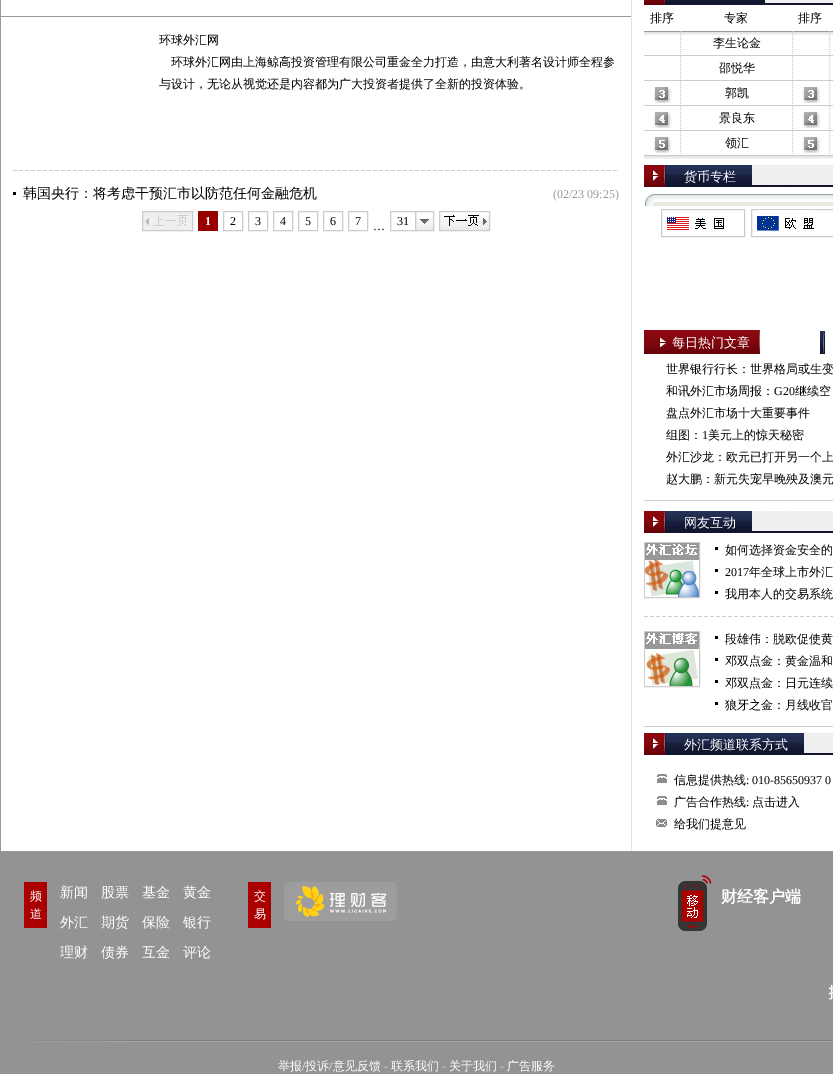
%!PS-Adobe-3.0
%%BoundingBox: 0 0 833 1074
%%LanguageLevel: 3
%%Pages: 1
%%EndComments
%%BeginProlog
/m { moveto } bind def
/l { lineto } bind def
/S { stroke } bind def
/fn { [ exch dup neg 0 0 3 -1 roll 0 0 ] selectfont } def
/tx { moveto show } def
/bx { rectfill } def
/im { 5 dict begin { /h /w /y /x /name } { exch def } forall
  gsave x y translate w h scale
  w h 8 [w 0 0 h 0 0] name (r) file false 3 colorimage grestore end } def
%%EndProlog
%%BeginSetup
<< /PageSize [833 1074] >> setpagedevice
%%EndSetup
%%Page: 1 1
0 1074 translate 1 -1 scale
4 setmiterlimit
1 setgray
0 0 833 1074 bx
0.6 setgray
0 851 833 1 bx
0 0 1 852 bx
(image0.raw) 631 0 160 851 im
1 16 630 1 bx
/WenQuanYiZenHei-Medium 12 fn
0 setgray
(环球外汇网) 159 44 tx
(环球外汇网由上海鲸高投资管理有限公司重金全力打造，由意大利著名设计师全程参) 171 66 tx
(与设计，无论从视觉还是内容都为广大投资者提供了全新的投资体验。) 159 88 tx
(image1.raw) 13 170 604 1 im
0.004 setgray
13 192 3 3 bx
/WenQuanYiZenHei-Medium 14 fn
0 setgray
(韩国央行：将考虑干预汇市以防范任何金融危机) 23 198 tx
/LiberationSerif-Regular 12 fn
0.6 setgray
(\(02/23 09:25\)) 553 198 tx
(image2.raw) 143 212 49 18 im
0.8 setgray
142.5 211.5 50 19 rectstroke
0.6 0 0 setrgbcolor
198 211 20 20 bx
/LiberationSerif-Bold 12 fn
1 setgray
(1) 205 225 tx
0.8 setgray
223.5 211.5 19 19 rectstroke
/LiberationSerif-Regular 12 fn
0 setgray
(2) 230 225 tx
0.8 setgray
248.5 211.5 19 19 rectstroke
0 setgray
(3) 255 225 tx
0.8 setgray
273.5 211.5 19 19 rectstroke
0 setgray
(4) 280 225 tx
0.8 setgray
298.5 211.5 19 19 rectstroke
0 setgray
(5) 305 225 tx
0.8 setgray
323.5 211.5 19 19 rectstroke
0 setgray
(6) 330 225 tx
0.8 setgray
348.5 211.5 19 19 rectstroke
0 setgray
(7) 355 225 tx
0.8 setgray
390.5 211.5 25 19 rectstroke
0 setgray
(31) 397 225 tx
(image3.raw) 416 218 17 12 im
0.8 setgray
415.5 211.5 18 19 rectstroke
(image4.raw) 440 215 49 15 im
439.5 211.5 50 19 rectstroke
0 setgray
(…) 373 230 tx
(image5.raw) 765 0 68 5 im
(image6.raw) 644 0 121 5 im
/WenQuanYiZenHei-Medium 12 fn
(排序) 650 22 tx
(专家) 724 22 tx
(排序) 798 22 tx
(image7.raw) 644 31 189 4 im
(image8.raw) 644 156 189 3 im
0.8 setgray
[1 1] 0 setdash
680.5 31 m 680.5 56 l S
644 55 37 1 bx
792.5 31 m 792.5 56 l S
681 55 112 1 bx
0 setgray
(李生论金) 713 47 tx
0.8 setgray
680.5 56 m 680.5 81 l S
644 80 37 1 bx
792.5 56 m 792.5 81 l S
681 80 112 1 bx
0 setgray
(邵悦华) 719 72 tx
0.8 setgray
680.5 81 m 680.5 106 l S
644 105 37 1 bx
(image9.raw) 653 86 19 17 im
792.5 81 m 792.5 106 l S
681 105 112 1 bx
0 setgray
(郭凯) 725 97 tx
0.8 setgray
680.5 106 m 680.5 131 l S
644 130 37 1 bx
(image10.raw) 653 111 19 17 im
792.5 106 m 792.5 131 l S
681 130 112 1 bx
0 setgray
(景良东) 719 122 tx
0.8 setgray
680.5 131 m 680.5 156 l S
644 155 37 1 bx
(image11.raw) 653 136 19 17 im
792.5 131 m 792.5 156 l S
681 155 112 1 bx
0 setgray
(领汇) 725 147 tx
0.8 setgray
829.5 31 m 829.5 56 l S
793 55 40 1 bx
829.5 56 m 829.5 81 l S
793 80 40 1 bx
829.5 81 m 829.5 106 l S
793 105 40 1 bx
(image9.raw) 802 86 19 17 im
829.5 106 m 829.5 131 l S
793 130 40 1 bx
(image10.raw) 802 111 19 17 im
829.5 131 m 829.5 156 l S
793 155 40 1 bx
(image11.raw) 802 136 19 17 im
(image12.raw) 752 165 81 22 im
(image13.raw) 644 165 108 22 im
/WenQuanYiZenHei-Medium 13 fn
1 setgray
(货币专栏) 684 181 tx
(image14.raw) 645 193 188 13 im
0.8 setgray
[] 0 setdash
661.5 209.5 83 27 rectstroke
(image15.raw) 667 217 57 13 im
751.5 209.5 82 27 rectstroke
(image16.raw) 757 210 57 26 im
(image17.raw) 644 330 116 24 im
(image18.raw) 660 337 6 10 im
1 setgray
(每日热门文章) 672 347 tx
(image19.raw) 820 331 5 23 im
/WenQuanYiZenHei-Medium 12 fn
0 setgray
666 373 m -1 0 32 (世界银行行长：世界格局或生变) widthshow
(和讯外汇市场周报：) 666 395 tx
/LiberationSerif-Regular 12 fn
(G20) 774 395 tx
/WenQuanYiZenHei-Medium 12 fn
(继续空) 795 395 tx
(盘点外汇市场十大重要事件) 666 417 tx
(组图：) 666 439 tx
/LiberationSerif-Regular 12 fn
(1) 702 439 tx
/WenQuanYiZenHei-Medium 12 fn
(美元上的惊天秘密) 708 439 tx
(外汇沙龙：欧元已打开另一个上) 666 461 tx
(赵大鹏：新元失宠早晚殃及澳元) 666 483 tx
0.8 setgray
644 500 189 1 bx
(image12.raw) 752 511 81 22 im
(image13.raw) 644 511 108 22 im
/WenQuanYiZenHei-Medium 13 fn
1 setgray
(网友互动) 684 527 tx
0.8 setgray
644.5 542.5 55 55 rectstroke
(image20.raw) 645 543 54 54 im
0.004 setgray
715 547 3 3 bx
/WenQuanYiZenHei-Medium 12 fn
0 setgray
(如何选择资金安全的) 725 554 tx
0.004 setgray
715 569 3 3 bx
/LiberationSerif-Regular 12 fn
0 setgray
(2017) 725 576 tx
/WenQuanYiZenHei-Medium 12 fn
(年全球上市外汇) 749 576 tx
0.004 setgray
715 591 3 3 bx
0 setgray
(我用本人的交易系统) 725 598 tx
(image21.raw) 644 605 189 23 im
0.8 setgray
644.5 631.5 55 55 rectstroke
(image22.raw) 645 632 54 54 im
0.004 setgray
715 636 3 3 bx
0 setgray
725 643 m -1 0 32 (段雄伟：脱欧促使黄) widthshow
0.004 setgray
715 658 3 3 bx
0 setgray
(邓双点金：黄金温和) 725 665 tx
0.004 setgray
715 680 3 3 bx
0 setgray
(邓双点金：日元连续) 725 687 tx
0.004 setgray
715 702 3 3 bx
0 setgray
725 709 m -1 0 32 (狼牙之金：月线收官) widthshow
0.8 setgray
644 726 189 1 bx
(image23.raw) 804 733 29 22 im
(image24.raw) 644 733 160 22 im
/WenQuanYiZenHei-Medium 13 fn
1 setgray
(外汇频道联系方式) 684 749 tx
(image25.raw) 657 774 10 9 im
/WenQuanYiZenHei-Medium 12 fn
0 setgray
(信息提供热线) 674 784 tx
/LiberationSerif-Regular 12 fn
(: 010-85650937 0) 746 784 tx
(image25.raw) 657 796 10 9 im
/WenQuanYiZenHei-Medium 12 fn
(广告合作热线) 674 806 tx
/LiberationSerif-Regular 12 fn
(:) 746 806 tx
/WenQuanYiZenHei-Medium 12 fn
(点击进入) 752 806 tx
(image26.raw) 656 819 11 8 im
(给我们提意见) 674 828 tx
0.576 setgray
0 852 833 222 bx
(image27.raw) 32 1040 801 2 im
0.671 0 0 setrgbcolor
24 882 23 46 bx
1 setgray
(频) 30 900 tx
(道) 30 918 tx
/WenQuanYiZenHei-Medium 14 fn
(新闻) 60 897 tx
(股票) 101 897 tx
(基金) 142 897 tx
(黄金) 183 897 tx
(外汇) 60 927 tx
(期货) 101 927 tx
(保险) 142 927 tx
(银行) 183 927 tx
(理财) 60 957 tx
(债券) 101 957 tx
(互金) 142 957 tx
(评论) 183 957 tx
0.671 0 0 setrgbcolor
248 882 23 46 bx
/WenQuanYiZenHei-Medium 12 fn
1 setgray
(交) 254 900 tx
(易) 254 918 tx
(image28.raw) 284 882 113 39 im
(image29.raw) 678 875 34 56 im
/WenQuanYiZenHei-Bold 16 fn
(财经客户端) 721 902 tx
(image30.raw) 828 984 5 16 im
/WenQuanYiZenHei-Medium 12 fn
(举报) 278 1070 tx
/LiberationSerif-Regular 12 fn
(/) 302 1070 tx
/WenQuanYiZenHei-Medium 12 fn
(投诉) 305 1070 tx
/LiberationSerif-Regular 12 fn
(/) 329 1070 tx
/WenQuanYiZenHei-Medium 12 fn
(意见反馈) 333 1070 tx
/LiberationSerif-Regular 12 fn
0.867 setgray
(-) 384 1070 tx
/WenQuanYiZenHei-Medium 12 fn
1 setgray
(联系我们) 391 1070 tx
/LiberationSerif-Regular 12 fn
0.867 setgray
(-) 442 1070 tx
/WenQuanYiZenHei-Medium 12 fn
1 setgray
(关于我们) 449 1070 tx
/LiberationSerif-Regular 12 fn
0.867 setgray
(-) 500 1070 tx
/WenQuanYiZenHei-Medium 12 fn
1 setgray
(广告服务) 507 1070 tx
showpage
%%EOF
